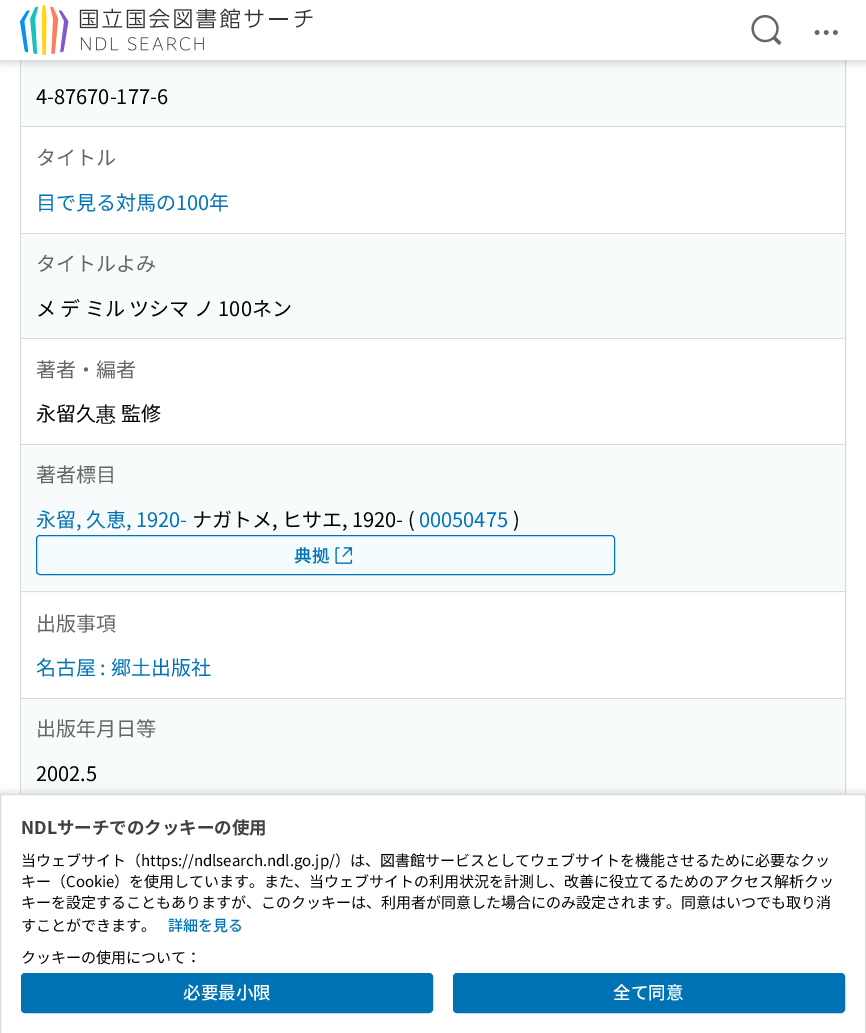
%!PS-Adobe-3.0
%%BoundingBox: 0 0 866 1033
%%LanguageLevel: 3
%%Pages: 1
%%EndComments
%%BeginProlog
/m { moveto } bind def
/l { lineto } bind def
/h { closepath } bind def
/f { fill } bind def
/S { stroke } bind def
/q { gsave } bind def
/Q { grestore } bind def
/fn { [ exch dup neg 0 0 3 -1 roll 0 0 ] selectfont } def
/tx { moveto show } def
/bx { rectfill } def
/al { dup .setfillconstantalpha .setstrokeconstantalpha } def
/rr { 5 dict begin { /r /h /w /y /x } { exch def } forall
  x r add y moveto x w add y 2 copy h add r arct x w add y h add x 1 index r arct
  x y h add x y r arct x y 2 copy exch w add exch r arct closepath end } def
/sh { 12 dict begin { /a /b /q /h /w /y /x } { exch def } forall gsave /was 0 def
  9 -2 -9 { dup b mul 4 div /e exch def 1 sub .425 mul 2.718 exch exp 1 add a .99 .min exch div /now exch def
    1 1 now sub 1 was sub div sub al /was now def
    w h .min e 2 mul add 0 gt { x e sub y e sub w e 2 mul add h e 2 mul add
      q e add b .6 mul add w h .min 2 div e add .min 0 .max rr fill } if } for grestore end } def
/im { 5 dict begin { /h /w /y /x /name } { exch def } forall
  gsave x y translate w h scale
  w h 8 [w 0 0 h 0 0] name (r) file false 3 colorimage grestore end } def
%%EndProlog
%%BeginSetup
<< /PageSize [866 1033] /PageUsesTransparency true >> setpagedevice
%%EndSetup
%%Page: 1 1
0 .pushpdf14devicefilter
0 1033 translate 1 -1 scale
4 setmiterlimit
1 setgray
0 0 866 1033 bx
0.859 setgray
20.5 -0.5 825 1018 rectstroke
0.969 0.984 0.988 setrgbcolor
21 60 824 68 bx
0 setgray
0 1 866 60 0 5 0.24 sh
1 setgray
0 0 866 60 bx
(image0.raw) 20 5 293 50 im
(image1.raw) 751 14 31 31 im
(image2.raw) 814 30 24 5 im
0.859 setgray
21 126 824 1 bx
/NotoSansJP-Regular 20 fn
0 setgray
(4-87670-177-6) 36 104 tx
0.859 setgray
21 233 824 1 bx
0.4 setgray
(タイトル) 36 165 tx
0 0.451 0.71 setrgbcolor
(目で見る対馬の100年) 36 210 tx
0.969 0.984 0.988 setrgbcolor
21 234 824 104 bx
0.859 setgray
21 338 824 1 bx
0.4 setgray
(タイトルよみ) 36 271 tx
0 setgray
(メ デ ミル ツシマ ノ 100ネン) 36 316 tx
0.859 setgray
21 444 824 1 bx
0.4 setgray
(著者・編者) 36 377 tx
0 setgray
(永留久) 36 421 tx
/WenQuanYiZenHei-Medium 20 fn
(惠) 96 421 tx
/NotoSansJP-Regular 20 fn
(監修) 121 421 tx
0.969 0.984 0.988 setrgbcolor
21 445 824 148 bx
0.859 setgray
21 591 824 1 bx
0.4 setgray
(著者標目) 36 482 tx
0 0.451 0.71 setrgbcolor
(永留, 久恵, 1920-) 36 527 tx
0 setgray
(ナガトメ, ヒサエ, 1920- \() 192 527 tx
0 0.451 0.71 setrgbcolor
(00050475) 419 527 tx
0 setgray
(\)) 513 527 tx
0.961 0.988 1 setrgbcolor
36.5 535.5 578 39 3.5 rr q f Q
0 0.451 0.71 setrgbcolor
S
/NotoSansJP-Medium 17.5 fn
(典拠) 294 562 tx
(image3.raw) 335 547 18 17 im
0.859 setgray
21 698 824 1 bx
/NotoSansJP-Regular 20 fn
0.4 setgray
(出版事項) 36 631 tx
0 0.451 0.71 setrgbcolor
(名古屋 : 郷土出版社) 36 675 tx
0.969 0.984 0.988 setrgbcolor
21 699 824 95 bx
0.4 setgray
(出版年月日等) 36 736 tx
0 setgray
(2002.5) 36 781 tx
0 795 866 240 0 5 0.24 sh
1 setgray
0.5 794.5 m 865.5 794.5 l 865.5 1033.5 l 0.5 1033.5 l h q f Q
0.859 setgray
S
/NotoSansJP-Bold 17.5 fn
0.251 setgray
(NDLサーチでのクッキーの使用) 21 834 tx
/NotoSansJP-Regular 15 fn
0 setgray
(当ウェブサイト（https://ndlsearch.ndl.go.jp/）は、図書館サービスとしてウェブサイトを機能させるために必要なクッ) 21 866 tx
(キー（Cookie）を使用しています。また、当ウェブサイトの利用状況を計測し、改善に役立てるためのアクセス解析クッ) 21 887 tx
(キーを設定することもありますが、このクッキーは、利用者が同意した場合にのみ設定されます。同意はいつでも取り消) 21 908 tx
(すことができます。) 21 931 tx
/NotoSansJP-Medium 15 fn
0 0.451 0.71 setrgbcolor
(詳細を見る) 168 931 tx
/NotoSansJP-Regular 15 fn
0 setgray
(クッキーの使用について：) 21 963 tx
0 0.451 0.71 setrgbcolor
21.5 973.5 411 39 3.5 rr q f Q
S
/NotoSansJP-Medium 17.5 fn
1 setgray
(必要最小限) 183 999 tx
0 0.451 0.71 setrgbcolor
453.5 973.5 391 39 3.5 rr q f Q
S
1 setgray
(全て同意) 613 999 tx
.poppdf14devicefilter showpage
%%EOF
